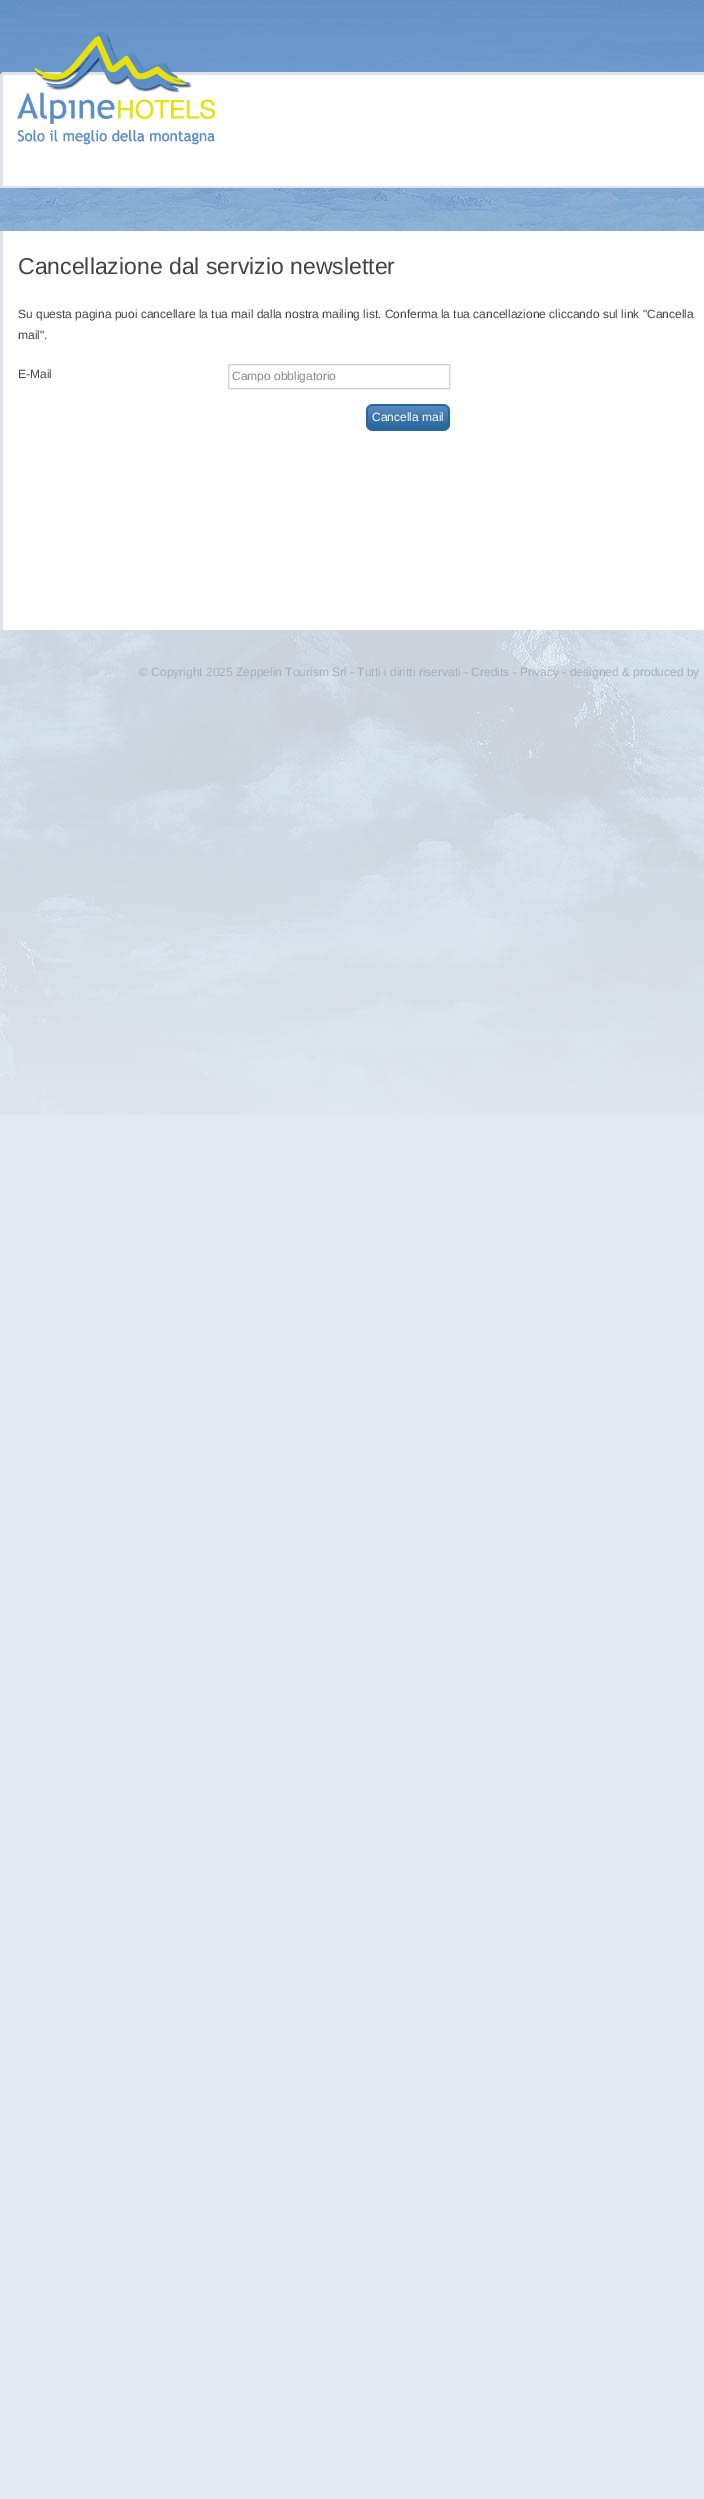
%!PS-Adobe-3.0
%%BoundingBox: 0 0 704 2499
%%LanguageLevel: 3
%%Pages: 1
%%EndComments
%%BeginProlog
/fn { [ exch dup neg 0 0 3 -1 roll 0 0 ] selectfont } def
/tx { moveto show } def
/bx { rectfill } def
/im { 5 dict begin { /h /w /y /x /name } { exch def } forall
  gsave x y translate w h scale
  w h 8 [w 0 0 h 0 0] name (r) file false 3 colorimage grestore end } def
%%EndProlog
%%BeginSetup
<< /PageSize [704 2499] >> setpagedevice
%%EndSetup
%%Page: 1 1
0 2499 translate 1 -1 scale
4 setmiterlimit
0.886 0.914 0.941 setrgbcolor
0 0 704 2499 bx
(image0.raw) 0 0 704 1115 im
(image1.raw) 0 72 704 116 im
(image2.raw) 17 31 199 114 im
(image3.raw) 0 231 704 399 im
/LiberationSans-Regular 23 fn
0.267 setgray
(Cancellazione dal servizio newsletter) 18 274 tx
/LiberationSans-Regular 12 fn
(Su questa pagina puoi cancellare la tua mail dalla nostra mailing list. Conferma la tua cancellazione cliccando sul link "Cancella) 18 318 tx
(mail".) 18 339 tx
(E-Mail) 18 378 tx
0.82 setgray
228.5 364.5 221 24 rectstroke
0.533 setgray
(Campo obbligatorio) 232 380 tx
(image4.raw) 366 404 6 27 im
(image5.raw) 372 404 72 27 im
1 setgray
(Cancella mail) 372 421 tx
(image6.raw) 444 404 6 27 im
0.631 0.686 0.741 setrgbcolor
(© Copyright 2025 Zeppelin Tourism Srl - Tutti i diritti riservati - Credits - Privacy - designed & produced by) 139 676 tx
showpage
%%EOF
